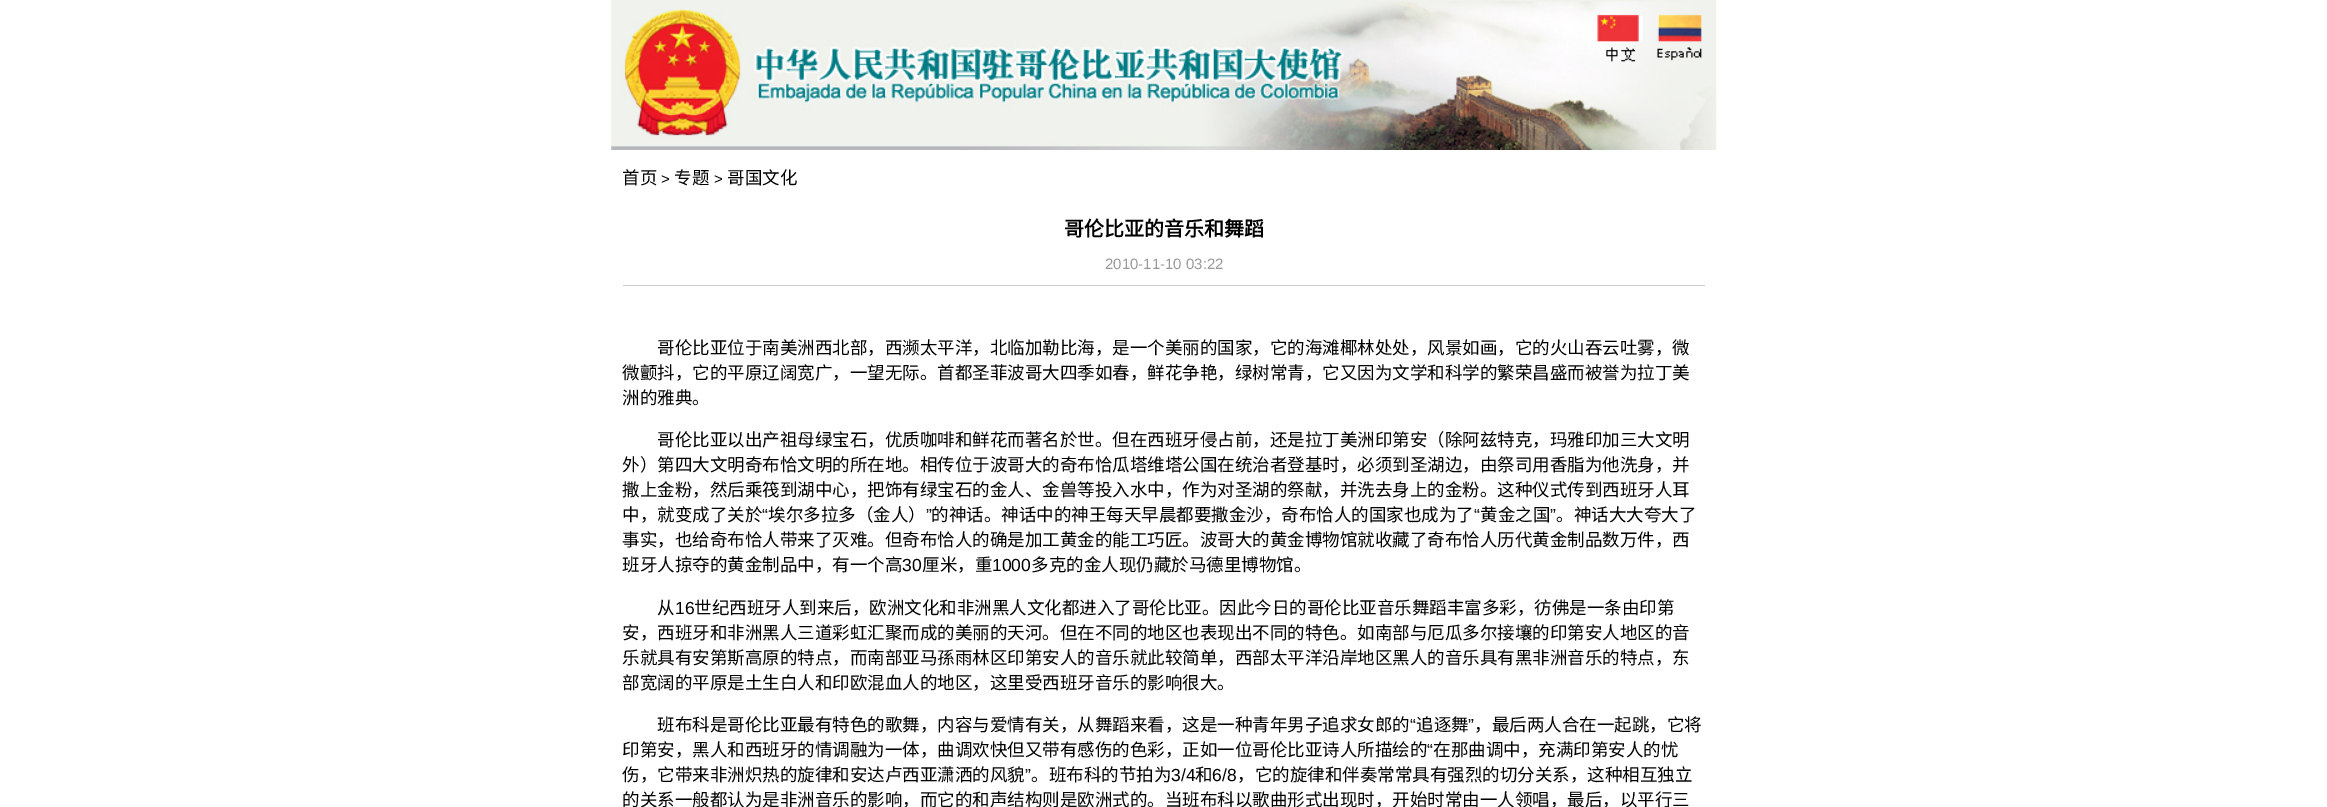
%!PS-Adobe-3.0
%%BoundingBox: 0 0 2327 807
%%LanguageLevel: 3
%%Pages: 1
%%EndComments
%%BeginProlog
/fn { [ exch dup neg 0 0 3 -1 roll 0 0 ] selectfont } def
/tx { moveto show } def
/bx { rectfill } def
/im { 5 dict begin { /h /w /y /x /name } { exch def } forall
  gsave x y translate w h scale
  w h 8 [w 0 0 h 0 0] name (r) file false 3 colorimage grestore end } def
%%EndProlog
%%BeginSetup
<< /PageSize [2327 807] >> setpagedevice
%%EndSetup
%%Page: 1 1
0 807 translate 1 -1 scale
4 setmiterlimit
1 setgray
0 0 2327 807 bx
(image0.raw) 611 0 1106 150 im
/NotoSansCJKSC-Regular 17.5 fn
0 setgray
(首页) 622 184 tx
/LiberationSans-Regular 15 fn
(>) 661 184 tx
/NotoSansCJKSC-Regular 17.5 fn
(专题) 674 184 tx
/LiberationSans-Regular 15 fn
(>) 714 184 tx
/NotoSansCJKSC-Regular 17.5 fn
(哥国文化) 727 184 tx
/NotoSansCJKSC-Bold 20 fn
(哥伦比亚的音乐和舞蹈) 1064 236 tx
/LiberationSans-Regular 15 fn
0.6 setgray
(2010-11-10 03:22) 1105 269 tx
0.8 setgray
623 285 1082 1 bx
/NotoSansCJKSC-Regular 17.5 fn
0 setgray
(哥伦比亚位于南美洲西北部，西濒太平洋，北临加勒比海，是一个美丽的国家，它的海滩椰林处处，风景如画，它的火山吞云吐雾，微) 657 354 tx
(微颤抖，它的平原辽阔宽广，一望无际。首都圣菲波哥大四季如春，鲜花争艳，绿树常青，它又因为文学和科学的繁荣昌盛而被誉为拉丁美) 622 379 tx
(洲的雅典。) 622 404 tx
(哥伦比亚以出产祖母绿宝石，优质咖啡和鲜花而著名於世。但在西班牙侵占前，还是拉丁美洲印第安（除阿兹特克，玛雅印加三大文明) 657 446 tx
(外）第四大文明奇布恰文明的所在地。相传位于波哥大的奇布恰瓜塔维塔公国在统治者登基时，必须到圣湖边，由祭司用香脂为他洗身，并) 622 471 tx
(撒上金粉，然后乘筏到湖中心，把饰有绿宝石的金人、金兽等投入水中，作为对圣湖的祭献，并洗去身上的金粉。这种仪式传到西班牙人耳) 622 496 tx
(中，就变成了关於) 622 521 tx
/LiberationSans-Regular 17.5 fn
(“) 762 521 tx
/NotoSansCJKSC-Regular 17.5 fn
(埃尔多拉多（金人）) 768 521 tx
/LiberationSans-Regular 17.5 fn
(”) 926 521 tx
/NotoSansCJKSC-Regular 17.5 fn
(的神话。神话中的神王每天早晨都要撒金沙，奇布恰人的国家也成为了) 931 521 tx
/LiberationSans-Regular 17.5 fn
(“) 1474 521 tx
/NotoSansCJKSC-Regular 17.5 fn
(黄金之国) 1480 521 tx
/LiberationSans-Regular 17.5 fn
(”) 1550 521 tx
/NotoSansCJKSC-Regular 17.5 fn
(。神话大大夸大了) 1556 521 tx
(事实，也给奇布恰人带来了灭难。但奇布恰人的确是加工黄金的能工巧匠。波哥大的黄金博物馆就收藏了奇布恰人历代黄金制品数万件，西) 622 546 tx
(班牙人掠夺的黄金制品中，有一个高) 622 571 tx
/LiberationSans-Regular 17.5 fn
(30) 902 571 tx
/NotoSansCJKSC-Regular 17.5 fn
(厘米，重) 922 571 tx
/LiberationSans-Regular 17.5 fn
(1000) 992 571 tx
/NotoSansCJKSC-Regular 17.5 fn
(多克的金人现仍藏於马德里博物馆。) 1031 571 tx
(从) 657 614 tx
/LiberationSans-Regular 17.5 fn
(16) 675 614 tx
/NotoSansCJKSC-Regular 17.5 fn
(世纪西班牙人到来后，欧洲文化和非洲黑人文化都进入了哥伦比亚。因此今日的哥伦比亚音乐舞蹈丰富多彩，彷佛是一条由印第) 694 614 tx
(安，西班牙和非洲黑人三道彩虹汇聚而成的美丽的天河。但在不同的地区也表现出不同的特色。如南部与厄瓜多尔接壤的印第安人地区的音) 622 639 tx
(乐就具有安第斯高原的特点，而南部亚马孫雨林区印第安人的音乐就此较简单，西部太平洋沿岸地区黑人的音乐具有黑非洲音乐的特点，东) 622 664 tx
(部宽阔的平原是土生白人和印欧混血人的地区，这里受西班牙音乐的影响很大。) 622 689 tx
(班布科是哥伦比亚最有特色的歌舞，内容与爱情有关，从舞蹈来看，这是一种青年男子追求女郎的) 657 731 tx
/LiberationSans-Regular 17.5 fn
(“) 1410 731 tx
/NotoSansCJKSC-Regular 17.5 fn
(追逐舞) 1416 731 tx
/LiberationSans-Regular 17.5 fn
(”) 1468 731 tx
/NotoSansCJKSC-Regular 17.5 fn
(，最后两人合在一起跳，它将) 1474 731 tx
(印第安，黑人和西班牙的情调融为一体，曲调欢快但又带有感伤的色彩，正如一位哥伦比亚诗人所描绘的) 622 756 tx
/LiberationSans-Regular 17.5 fn
(“) 1427 756 tx
/NotoSansCJKSC-Regular 17.5 fn
(在那曲调中，充满印第安人的忧) 1433 756 tx
(伤，它带来非洲炽热的旋律和安达卢西亚潇洒的风貌) 622 781 tx
/LiberationSans-Regular 17.5 fn
(”) 1025 781 tx
/NotoSansCJKSC-Regular 17.5 fn
(。班布科的节拍为) 1031 781 tx
/LiberationSans-Regular 17.5 fn
(3/4) 1171 781 tx
/NotoSansCJKSC-Regular 17.5 fn
(和) 1195 781 tx
/LiberationSans-Regular 17.5 fn
(6/8) 1212 781 tx
/NotoSansCJKSC-Regular 17.5 fn
(，它的旋律和伴奏常常具有强烈的切分关系，这种相互独立) 1237 781 tx
(的关系一般都认为是非洲音乐的影响，而它的和声结构则是欧洲式的。当班布科以歌曲形式出现时，开始时常由一人领唱，最后，以平行三) 622 806 tx
showpage
%%EOF
